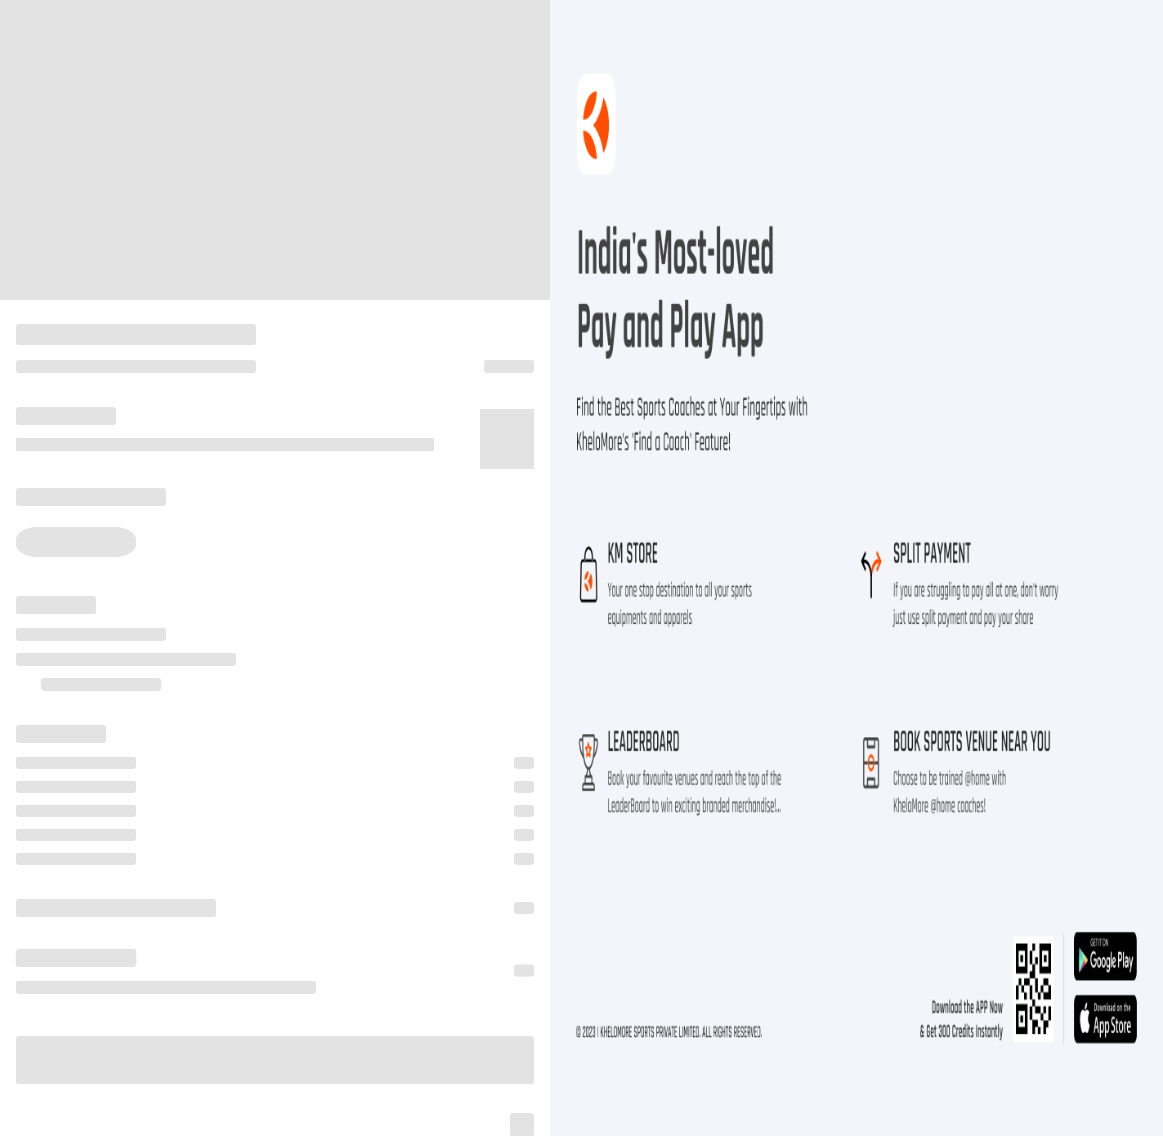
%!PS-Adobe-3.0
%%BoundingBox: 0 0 1163 1136
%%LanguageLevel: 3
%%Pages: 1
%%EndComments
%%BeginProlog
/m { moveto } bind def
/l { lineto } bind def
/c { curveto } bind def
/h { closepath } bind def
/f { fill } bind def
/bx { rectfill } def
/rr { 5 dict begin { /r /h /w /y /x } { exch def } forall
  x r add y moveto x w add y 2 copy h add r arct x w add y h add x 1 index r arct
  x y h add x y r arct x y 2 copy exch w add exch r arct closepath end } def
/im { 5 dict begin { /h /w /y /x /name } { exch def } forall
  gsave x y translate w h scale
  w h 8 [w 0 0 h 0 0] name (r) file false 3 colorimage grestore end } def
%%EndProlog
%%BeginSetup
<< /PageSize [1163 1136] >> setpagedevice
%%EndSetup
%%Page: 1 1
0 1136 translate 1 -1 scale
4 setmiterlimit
1 setgray
0 0 1163 1136 bx
0.89 setgray
0 0 550 300 bx
20 324 m 252 324 l 254 324 256 325 256 327 c 256 343 l 256 344 254 345 252 345 c 20 345 l 18 345 16 344 16 343 c 16 327 l 16 325 18 324 20 324 c h f
20 360 m 252 360 l 254 360 256 361 256 362 c 256 370 l 256 372 254 373 252 373 c 20 373 l 18 373 16 372 16 370 c 16 362 l 16 361 18 360 20 360 c h f
488 360 m 530 360 l 532 360 534 361 534 362 c 534 370 l 534 372 532 373 530 373 c 488 373 l 486 373 484 372 484 370 c 484 362 l 484 361 486 360 488 360 c h f
20 407 m 112 407 l 114 407 116 408 116 410 c 116 423 l 116 424 114 425 112 425 c 20 425 l 18 425 16 424 16 423 c 16 410 l 16 408 18 407 20 407 c h f
16 438 418 13 2 rr f
480 409 54 60 bx
20 488 m 162 488 l 164 488 166 489 166 491 c 166 504 l 166 505 164 506 162 506 c 20 506 l 18 506 16 505 16 504 c 16 491 l 16 489 18 488 20 488 c h f
38 527 m 114 527 l 126 527 136 533 136 540 c 136 544 l 136 551 126 557 114 557 c 38 557 l 26 557 16 551 16 544 c 16 540 l 16 533 26 527 38 527 c h f
20 596 m 92 596 l 94 596 96 597 96 599 c 96 612 l 96 613 94 614 92 614 c 20 614 l 18 614 16 613 16 612 c 16 599 l 16 597 18 596 20 596 c h f
20 628 m 162 628 l 164 628 166 629 166 630 c 166 638 l 166 640 164 641 162 641 c 20 641 l 18 641 16 640 16 638 c 16 630 l 16 629 18 628 20 628 c h f
20 653 m 232 653 l 234 653 236 654 236 655 c 236 663 l 236 665 234 666 232 666 c 20 666 l 18 666 16 665 16 663 c 16 655 l 16 654 18 653 20 653 c h f
45 678 m 157 678 l 160 678 161 679 161 682 c 161 686 162 691 157 691 c 44 691 l 41 689 l 41 685 l 41 682 40 678 45 678 c h f
20 725 m 102 725 l 104 725 106 726 106 728 c 106 741 l 106 742 104 743 102 743 c 20 743 l 18 743 16 742 16 741 c 16 728 l 16 726 18 725 20 725 c h f
20 757 m 132 757 l 134 757 136 758 136 759 c 136 766 l 136 768 134 769 132 769 c 20 769 l 18 769 16 768 16 766 c 16 759 l 16 758 18 757 20 757 c h f
518 757 m 528 757 l 534 757 534 757.5 534 763 c 534 766.5 534.5 768.5 530 769 c 524 769 l 522 769 515 769.5 514 767 c 514 761.5 l 514 758.5 514.5 757 518 757 c h f
20 781 m 132 781 l 134 781 136 782 136 783 c 136 790 l 136 792 134 793 132 793 c 20 793 l 18 793 16 792 16 790 c 16 783 l 16 782 18 781 20 781 c h f
518 781 m 528 781 l 534 781 534 781.5 534 787 c 534 790.5 534.5 792.5 530 793 c 524 793 l 522 793 515 793.5 514 791 c 514 785.5 l 514 782.5 514.5 781 518 781 c h f
20 805 m 132 805 l 134 805 136 806 136 807 c 136 814 l 136 816 134 817 132 817 c 20 817 l 18 817 16 816 16 814 c 16 807 l 16 806 18 805 20 805 c h f
518 805 m 528 805 l 534 805 534 805.5 534 811 c 534 814.5 534.5 816.5 530 817 c 524 817 l 522 817 515 817.5 514 815 c 514 809.5 l 514 806.5 514.5 805 518 805 c h f
20 829 m 132 829 l 134 829 136 830 136 831 c 136 838 l 136 840 134 841 132 841 c 20 841 l 18 841 16 840 16 838 c 16 831 l 16 830 18 829 20 829 c h f
518 829 m 528 829 l 534 829 534 829.5 534 835 c 534 838.5 534.5 840.5 530 841 c 524 841 l 522 841 515 841.5 514 839 c 514 833.5 l 514 830.5 514.5 829 518 829 c h f
20 853 m 132 853 l 134 853 136 854 136 855 c 136 862 l 136 864 134 865 132 865 c 20 865 l 18 865 16 864 16 862 c 16 855 l 16 854 18 853 20 853 c h f
518 853 m 528 853 l 534 853 534 853.5 534 859 c 534 862.5 534.5 864.5 530 865 c 524 865 l 522 865 515 865.5 514 863 c 514 857.5 l 514 854.5 514.5 853 518 853 c h f
20 899 m 212 899 l 214 899 216 900 216 902 c 216 915 l 216 916 214 917 212 917 c 20 917 l 18 917 16 916 16 915 c 16 902 l 16 900 18 899 20 899 c h f
518 902 m 528 902 l 534 902 534 902.5 534 908 c 534 911.5 534.5 913.5 530 914 c 524 914 l 522 914 515 914.5 514 912 c 514 906.5 l 514 903.5 514.5 902 518 902 c h f
20 949 m 132 949 l 137 949 136 952 136 956 c 136 960 138 967 132 967 c 18 967 l 15 966 16 961 16 958 c 16 954 15 949 20 949 c h f
20 981 m 312 981 l 314 981 316 982 316 983 c 316 991 l 316 993 314 994 312 994 c 20 994 l 18 994 16 993 16 991 c 16 983 l 16 982 18 981 20 981 c h f
518 964.5 m 528 964.5 l 534 964.5 534 965 534 970.5 c 534 974 534.5 976.5 530 976.5 c 524 976.5 l 522 976.5 515 977.5 514 974.5 c 514 969.5 l 514 966 514.5 964.5 518 964.5 c h f
20 1036 m 530 1036 l 532 1036 534 1037 534 1039 c 534 1082 l 534 1083 532 1084 530 1084 c 20 1084 l 18 1084 16 1083 16 1082 c 16 1039 l 16 1037 18 1036 20 1036 c h f
510 1113 24 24 4 rr f
(image0.raw) 550 0 613 1136 im
showpage
%%EOF
